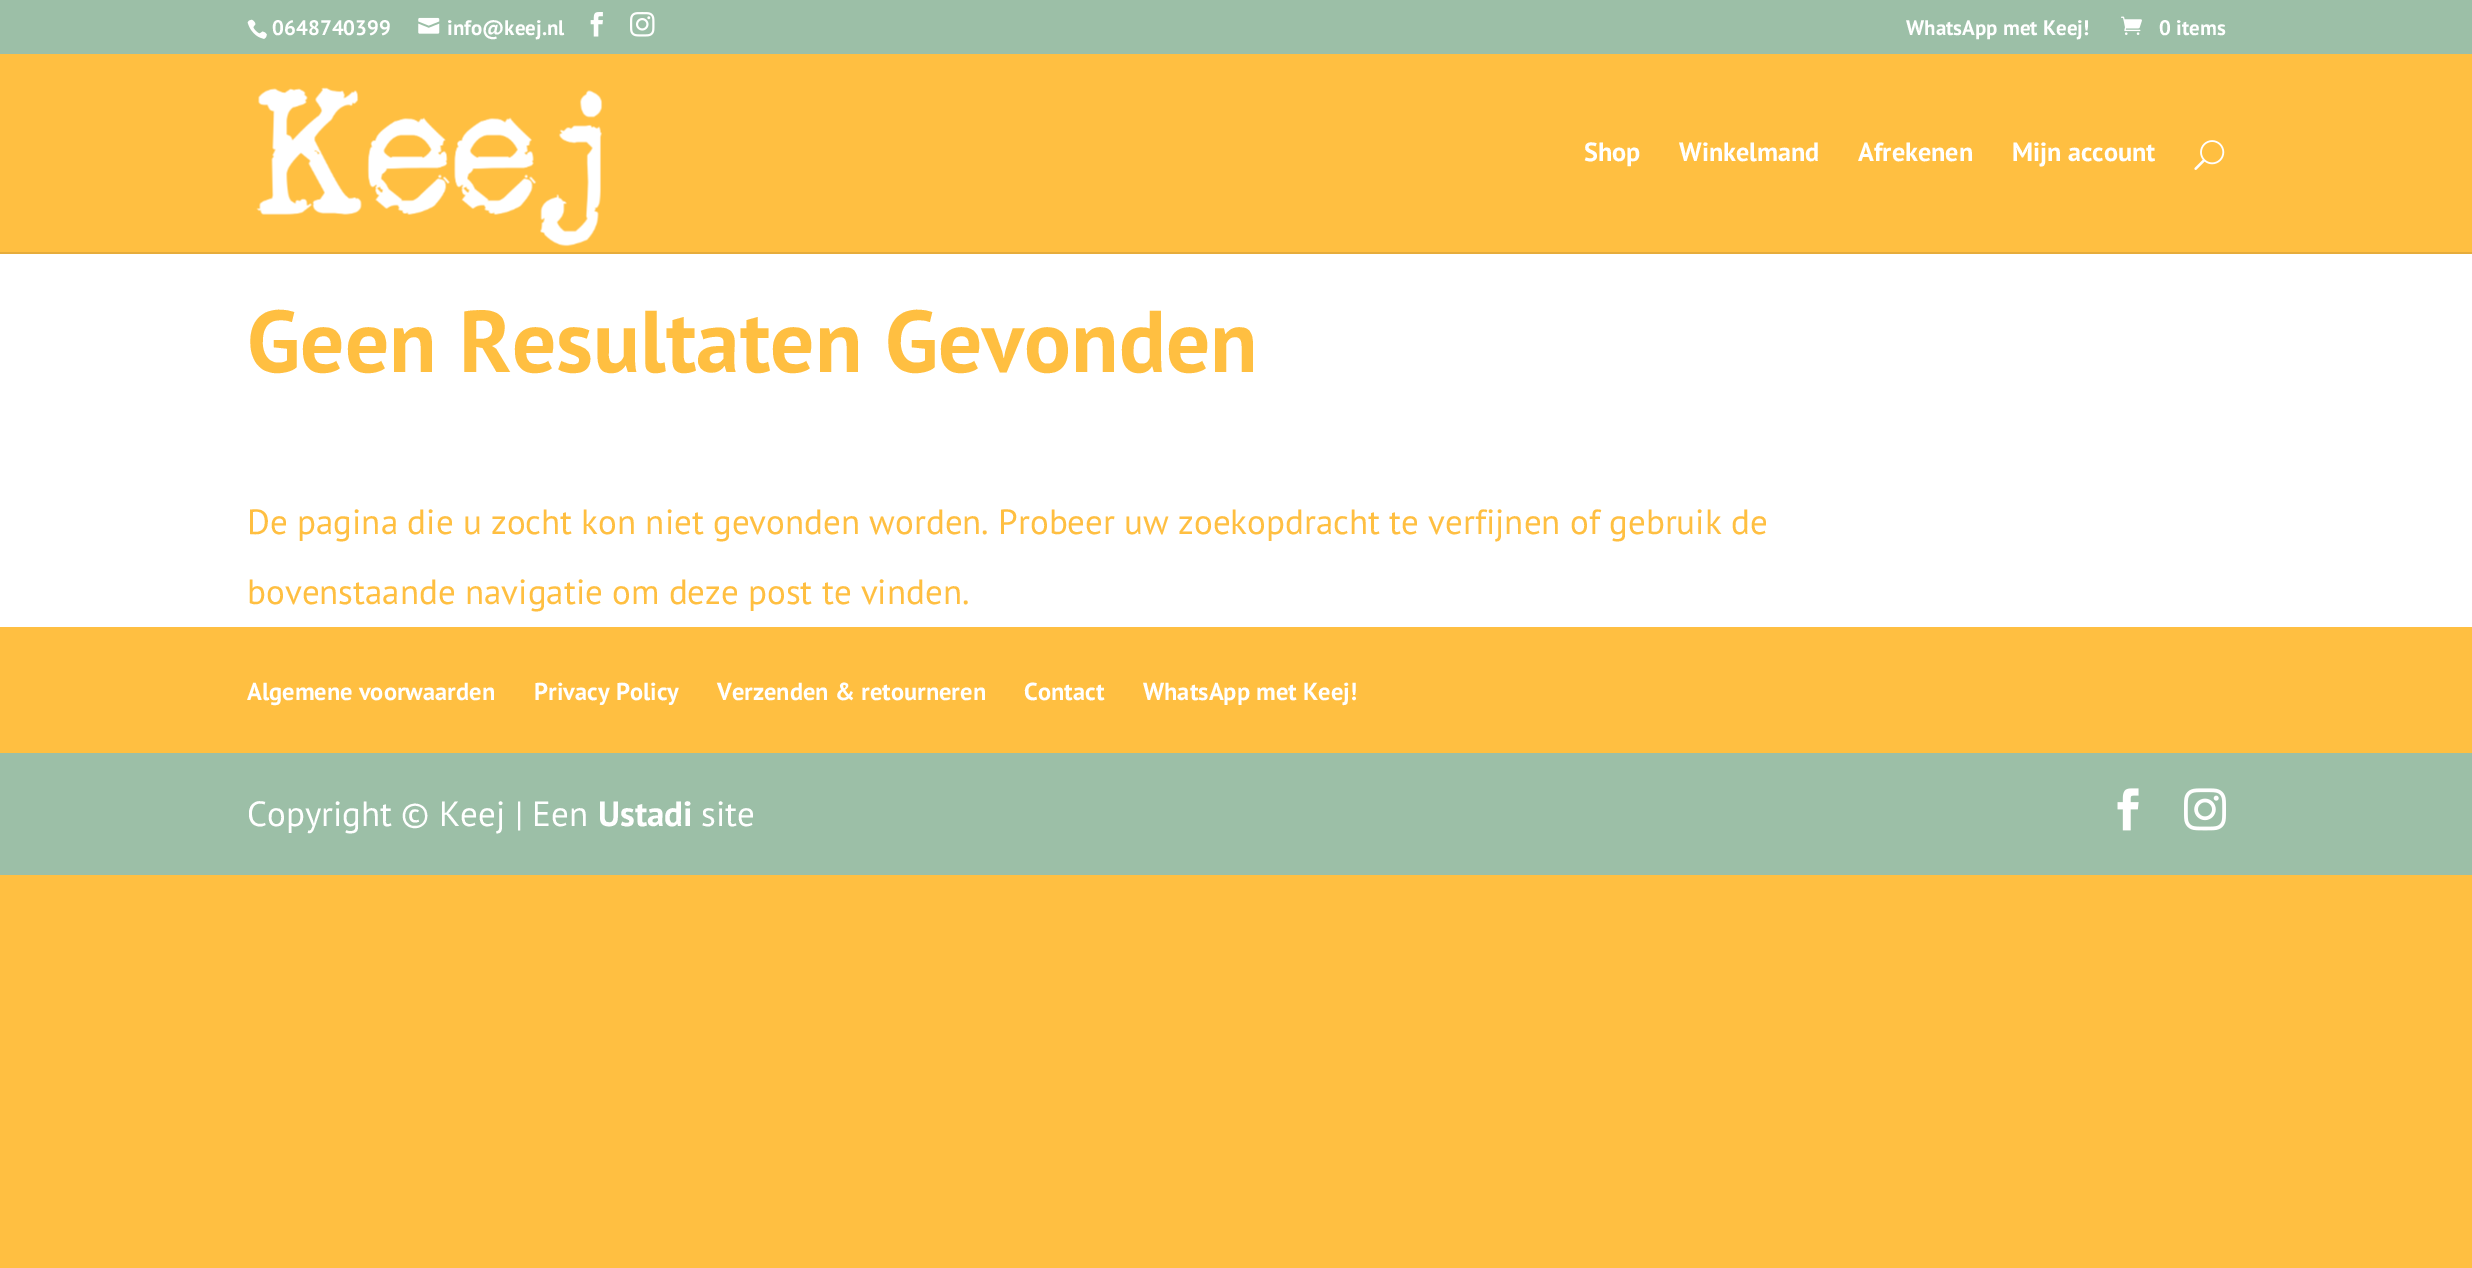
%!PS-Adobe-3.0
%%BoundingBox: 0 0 2472 1268
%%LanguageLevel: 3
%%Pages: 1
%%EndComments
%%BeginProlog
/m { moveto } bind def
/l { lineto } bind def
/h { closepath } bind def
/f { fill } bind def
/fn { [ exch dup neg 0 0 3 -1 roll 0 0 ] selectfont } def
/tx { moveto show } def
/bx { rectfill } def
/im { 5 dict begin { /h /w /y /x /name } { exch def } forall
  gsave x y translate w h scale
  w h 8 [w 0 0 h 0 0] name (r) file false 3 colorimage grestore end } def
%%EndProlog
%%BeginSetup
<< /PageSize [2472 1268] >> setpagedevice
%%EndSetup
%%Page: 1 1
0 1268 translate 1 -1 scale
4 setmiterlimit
1 0.749 0.255 setrgbcolor
0 0 2472 1268 bx
0.612 0.749 0.655 setrgbcolor
0 0 2472 54 bx
(image0.raw) 247 19 20 20 im
/PTSans-Bold 21 fn
1 setgray
(0648740399) 272 35 tx
(image1.raw) 418 17 22 17 im
(info@keej.nl) 447 35 tx
(image2.raw) 590 12 13 25 im
(image3.raw) 630 12 25 25 im
(WhatsApp met Keej!) 1906 35 tx
(image4.raw) 2121 16 21 19 im
(0 items) 2159 35 tx
0.902 0.675 0.231 setrgbcolor
0 252 m 0 254 l 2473 254 l 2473 54 l 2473 252 l h f
(image5.raw) 256 87 347 160 im
/PTSans-Bold 26.25 fn
1 setgray
(Shop) 1584 161 tx
(Winkelmand) 1679 161 tx
(Afrekenen) 1858 161 tx
(Mijn account) 2012 161 tx
(image6.raw) 2194 140 31 30 im
0 254 2472 373 bx
/PTSans-Bold 87.5 fn
1 0.749 0.255 setrgbcolor
(Geen Resultaten Gevonden) 247 372 tx
/PTSans-Regular 35 fn
(De pagina die u zocht kon niet gevonden worden. Probeer uw zoekopdracht te verfijnen of gebruik de) 247 534 tx
(bovenstaande navigatie om deze post te vinden.) 247 604 tx
/PTSans-Bold 24.5 fn
1 setgray
(Algemene voorwaarden) 247 700 tx
(Privacy Policy) 534 700 tx
(Verzenden & retourneren) 717 700 tx
(Contact) 1024 700 tx
(WhatsApp met Keej!) 1143 700 tx
0.612 0.749 0.655 setrgbcolor
0 753 2472 122 bx
/PTSans-Regular 35 fn
1 setgray
(Copyright © Keej | Een) 247 826 tx
/PTSans-Bold 35 fn
(Ustadi) 598 826 tx
/PTSans-Regular 35 fn
(site) 701 826 tx
(image7.raw) 2117 788 22 43 im
(image8.raw) 2184 788 42 43 im
showpage
%%EOF
